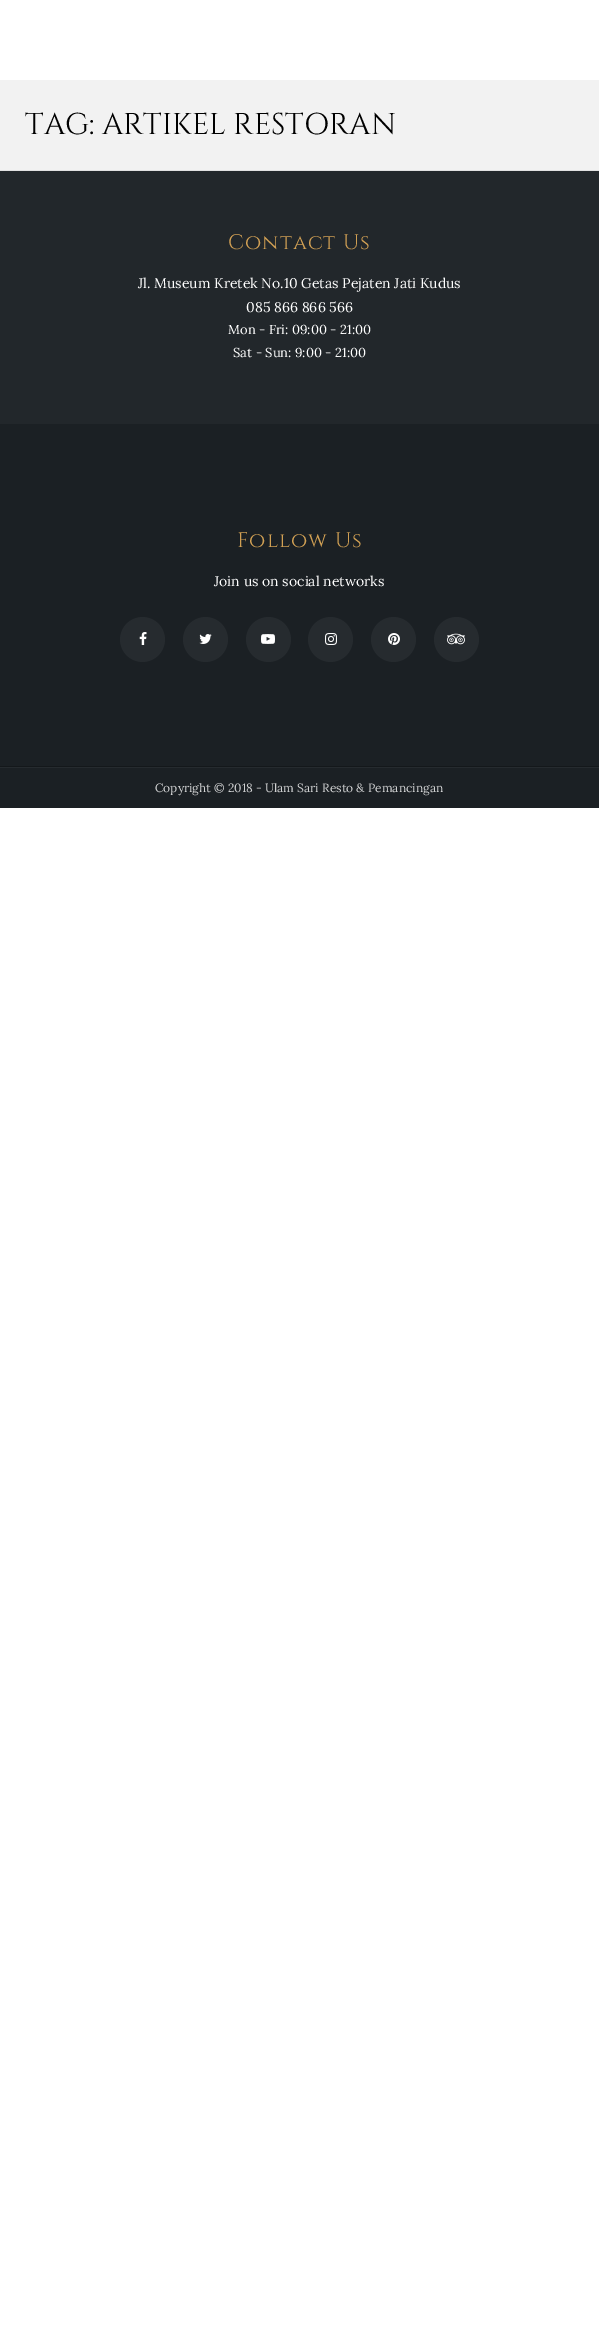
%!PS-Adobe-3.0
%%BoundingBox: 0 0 599 2333
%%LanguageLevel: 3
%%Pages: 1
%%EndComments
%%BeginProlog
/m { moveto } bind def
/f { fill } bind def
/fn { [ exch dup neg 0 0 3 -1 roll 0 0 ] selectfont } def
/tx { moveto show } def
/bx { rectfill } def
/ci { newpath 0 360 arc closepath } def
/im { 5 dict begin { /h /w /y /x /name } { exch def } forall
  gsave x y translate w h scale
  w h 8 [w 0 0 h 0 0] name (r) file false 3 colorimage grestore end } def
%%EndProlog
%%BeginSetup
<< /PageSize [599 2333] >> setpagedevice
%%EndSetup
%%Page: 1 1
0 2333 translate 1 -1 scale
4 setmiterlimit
1 setgray
0 0 599 2333 bx
0.949 setgray
0 80 599 90 bx
0.882 setgray
0 170 599 1 bx
/Cinzel-Regular 30 fn
0 setgray
(TAG: ARTIKEL RESTORAN) 25 134 tx
0.106 0.125 0.141 setrgbcolor
0 424 599 384 bx
0.133 0.153 0.169 setrgbcolor
0 171 599 253 bx
/Cinzel-Regular 21 fn
0.82 0.627 0.329 setrgbcolor
228 249 m 1 0 (Contact Us) ashow
/Lora-Regular 14 fn
1 setgray
(Jl. Museum Kretek No.10 Getas Pejaten Jati Kudus) 138 288 tx
(085 866 866 566) 246 312 tx
/Lora-Regular 13 fn
(Mon - Fri: 09:00 - 21:00) 228 334 tx
(Sat - Sun: 9:00 - 21:00) 233 357 tx
/Cinzel-Regular 21 fn
0.82 0.627 0.329 setrgbcolor
237 547 m 1 0 (Follow Us) ashow
/Lora-Regular 14 fn
1 setgray
(Join us on social networks) 214 586 tx
0.149 0.169 0.184 setrgbcolor
142.5 639.5 22.5 ci f
(image0.raw) 139 632 8 13 im
205.5 639.5 22.5 ci f
(image1.raw) 199 634 13 10 im
268.5 639.5 22.5 ci f
(image2.raw) 261 634 14 10 im
330.5 639.5 22.5 ci f
(image3.raw) 325 633 12 12 im
393.5 639.5 22.5 ci f
(image4.raw) 388 633 12 12 im
456.5 639.5 22.5 ci f
(image5.raw) 447 633 18 12 im
0.078 0.094 0.106 setrgbcolor
0 766 599 1 bx
0.149 0.169 0.184 setrgbcolor
0 767 599 1 bx
/Lora-Regular 12 fn
0.82 0.824 0.827 setrgbcolor
(Copyright © 2018 - Ulam Sari Resto & Pemancingan) 155 792 tx
showpage
%%EOF
